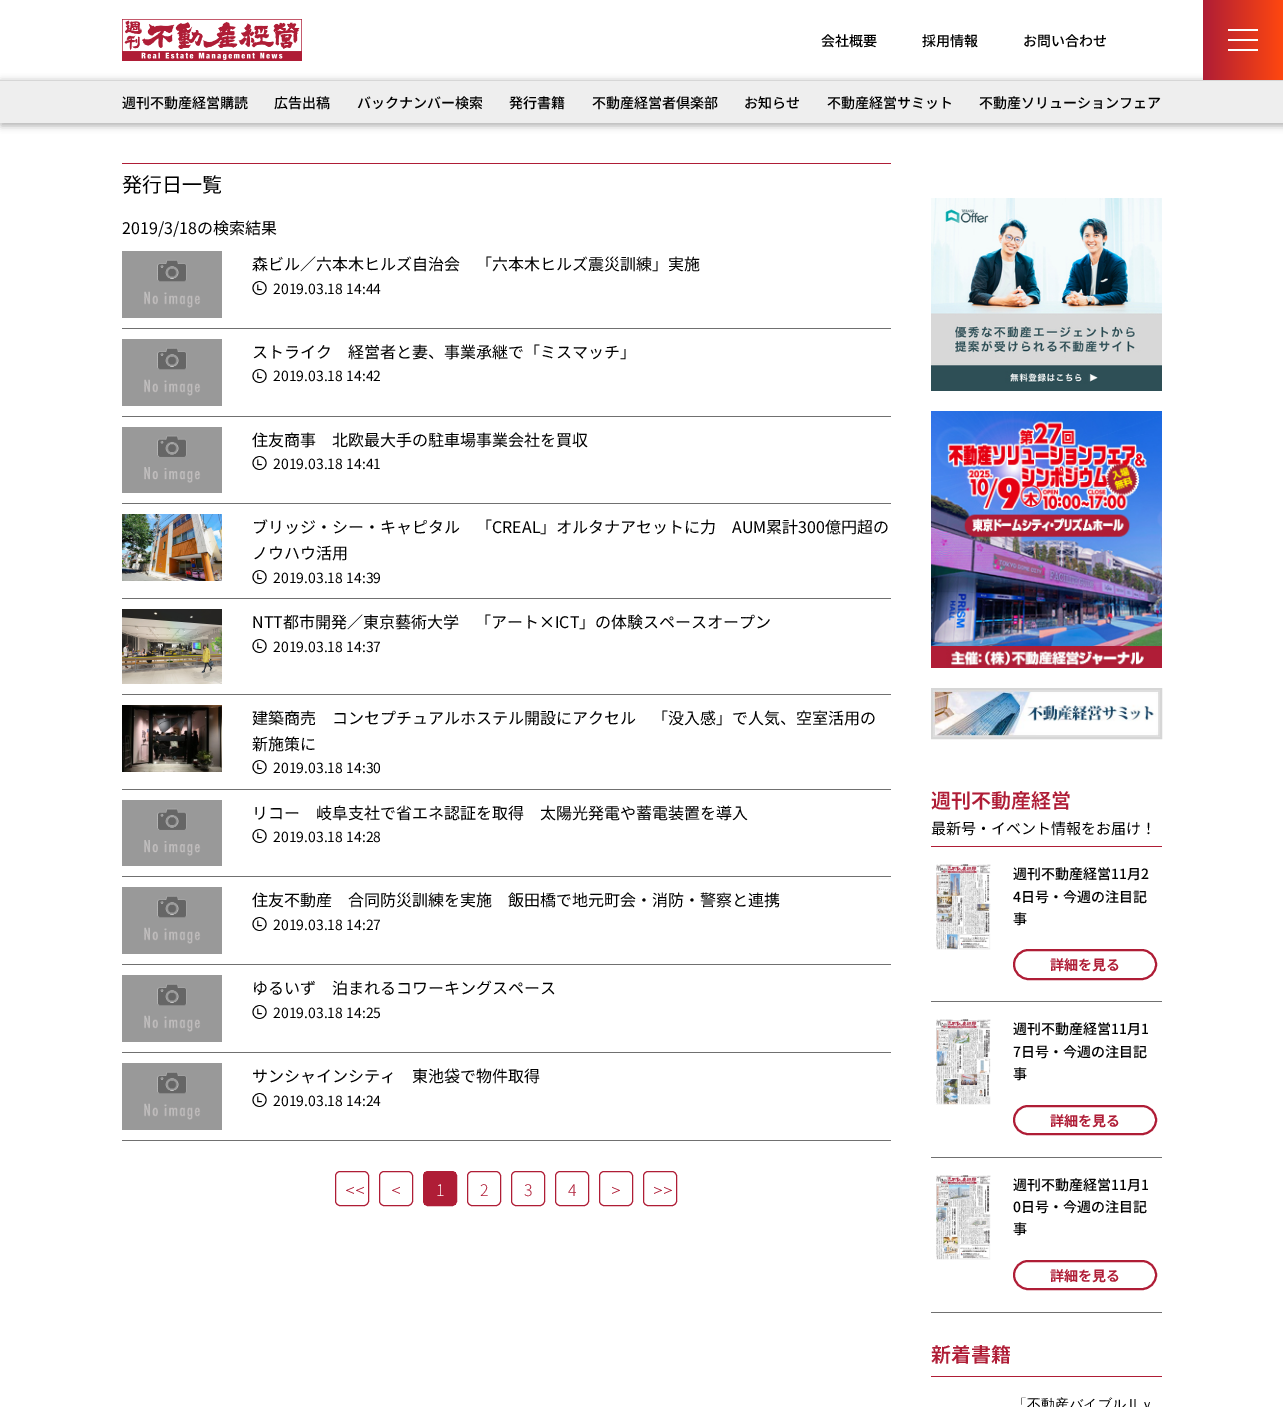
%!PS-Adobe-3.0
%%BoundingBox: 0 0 1283 1407
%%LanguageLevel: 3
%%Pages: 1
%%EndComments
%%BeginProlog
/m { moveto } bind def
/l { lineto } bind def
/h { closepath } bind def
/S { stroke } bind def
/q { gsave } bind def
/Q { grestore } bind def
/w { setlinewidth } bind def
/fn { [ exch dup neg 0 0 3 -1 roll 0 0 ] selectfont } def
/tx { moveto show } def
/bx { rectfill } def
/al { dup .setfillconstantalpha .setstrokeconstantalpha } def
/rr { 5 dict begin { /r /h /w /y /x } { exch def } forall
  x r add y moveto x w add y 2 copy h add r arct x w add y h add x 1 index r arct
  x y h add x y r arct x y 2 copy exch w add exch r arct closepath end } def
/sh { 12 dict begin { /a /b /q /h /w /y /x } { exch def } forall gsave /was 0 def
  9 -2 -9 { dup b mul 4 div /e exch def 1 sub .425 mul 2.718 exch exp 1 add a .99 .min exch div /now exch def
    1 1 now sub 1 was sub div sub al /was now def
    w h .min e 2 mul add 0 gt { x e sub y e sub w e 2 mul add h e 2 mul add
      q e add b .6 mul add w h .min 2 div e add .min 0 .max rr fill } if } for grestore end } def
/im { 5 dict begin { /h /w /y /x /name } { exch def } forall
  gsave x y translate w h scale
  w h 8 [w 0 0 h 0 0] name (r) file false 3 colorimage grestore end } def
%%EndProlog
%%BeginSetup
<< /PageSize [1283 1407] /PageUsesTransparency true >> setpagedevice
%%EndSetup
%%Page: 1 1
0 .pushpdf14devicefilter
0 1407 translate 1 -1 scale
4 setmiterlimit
1 setgray
0 0 1283 1407 bx
(image0.raw) 122 19 180 42 im
/NotoSansJP-Medium 14 fn
0 setgray
(会社概要) 821 46 tx
(採用情報) 922 46 tx
(お問い合わせ) 1023 46 tx
1 81 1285 45 0 3.5 0.3 sh
q 1203 0 m 1283 0 l 1283 80 l 1203 80 l h clip newpath
<< /ShadingType 2 /ColorSpace /DeviceRGB /Coords [1203 40 1283 40] /Extend [true true] /Function << /FunctionType 2 /Domain [0 1] /C0 [0.686 0.114 0.212] /C1 [1 0.278 0.059] /N 1 >> >> shfill Q
1 setgray
1228 39 30 2 bx
1228 29 30 2 bx
1228 49 30 2 bx
0.933 setgray
0 81 1283 42 bx
0.839 setgray
0 80 1283 1 bx
0 setgray
(週刊不動産経営購読) 122 108 tx
(広告出稿) 274 108 tx
(バックナンバー検索) 357 108 tx
(発行書籍) 509 108 tx
(不動産経営者倶楽部) 592 108 tx
(お知らせ) 744 108 tx
(不動産経営サミット) 827 108 tx
(不動産ソリューションフェア) 979 108 tx
0.686 0.114 0.212 setrgbcolor
122 163 769 1 bx
/NotoSansJP-Regular 20 fn
0 setgray
(発行日一覧) 122 192 tx
/NotoSansJP-Regular 16 fn
(2019/3/18の検索結果) 122 234 tx
0.439 setgray
122 328 769 1 bx
(image1.raw) 122 251 100 67 im
0 setgray
(森ビル／六本木ヒルズ自治会　「六本木ヒルズ震災訓練」実施) 252 270 tx
(image2.raw) 252 281 15 14 im
/NotoSansJP-Regular 14 fn
(2019.03.18 14:44) 273 294 tx
0.439 setgray
122 416 769 1 bx
(image1.raw) 122 339 100 67 im
/NotoSansJP-Regular 16 fn
0 setgray
(ストライク　経営者と妻、事業承継で「ミスマッチ」) 252 358 tx
(image2.raw) 252 369 15 14 im
/NotoSansJP-Regular 14 fn
(2019.03.18 14:42) 273 381 tx
0.439 setgray
122 503 769 1 bx
(image3.raw) 122 427 100 66 im
/NotoSansJP-Regular 16 fn
0 setgray
(住友商事　北欧最大手の駐車場事業会社を買収) 252 446 tx
(image2.raw) 252 456 15 14 im
/NotoSansJP-Regular 14 fn
(2019.03.18 14:41) 273 469 tx
0.439 setgray
122 598 769 1 bx
(image4.raw) 122 514 100 67 im
/NotoSansJP-Regular 16 fn
0 setgray
(ブリッジ・シー・キャピタル　「CREAL」オルタナアセットに力　AUM累計300億円超の) 252 533 tx
(ノウハウ活用) 252 559 tx
(image2.raw) 252 570 15 14 im
/NotoSansJP-Regular 14 fn
(2019.03.18 14:39) 273 583 tx
0.439 setgray
122 694 769 1 bx
(image5.raw) 122 609 100 75 im
/NotoSansJP-Regular 16 fn
0 setgray
(NTT都市開発／東京藝術大学　「アート×ICT」の体験スペースオープン) 252 628 tx
(image2.raw) 252 639 15 14 im
/NotoSansJP-Regular 14 fn
(2019.03.18 14:37) 273 652 tx
0.439 setgray
122 789 769 1 bx
(image6.raw) 122 705 100 67 im
/NotoSansJP-Regular 16 fn
0 setgray
(建築商売　コンセプチュアルホステル開設にアクセル　「没入感」で人気、空室活用の) 252 724 tx
(新施策に) 252 750 tx
(image2.raw) 252 760 15 14 im
/NotoSansJP-Regular 14 fn
(2019.03.18 14:30) 273 773 tx
0.439 setgray
122 876 769 1 bx
(image7.raw) 122 800 100 66 im
/NotoSansJP-Regular 16 fn
0 setgray
(リコー　岐阜支社で省エネ認証を取得　太陽光発電や蓄電装置を導入) 252 819 tx
(image2.raw) 252 829 15 14 im
/NotoSansJP-Regular 14 fn
(2019.03.18 14:28) 273 842 tx
0.439 setgray
122 964 769 1 bx
(image1.raw) 122 887 100 67 im
/NotoSansJP-Regular 16 fn
0 setgray
(住友不動産　合同防災訓練を実施　飯田橋で地元町会・消防・警察と連携) 252 906 tx
(image2.raw) 252 917 15 14 im
/NotoSansJP-Regular 14 fn
(2019.03.18 14:27) 273 930 tx
0.439 setgray
122 1052 769 1 bx
(image1.raw) 122 975 100 67 im
/NotoSansJP-Regular 16 fn
0 setgray
(ゆるいず　泊まれるコワーキングスペース) 252 994 tx
(image2.raw) 252 1005 15 14 im
/NotoSansJP-Regular 14 fn
(2019.03.18 14:25) 273 1018 tx
0.439 setgray
122 1140 769 1 bx
(image1.raw) 122 1063 100 67 im
/NotoSansJP-Regular 16 fn
0 setgray
(サンシャインシティ　東池袋で物件取得) 252 1082 tx
(image2.raw) 252 1093 15 14 im
/NotoSansJP-Regular 14 fn
(2019.03.18 14:24) 273 1106 tx
0.686 0.114 0.212 setrgbcolor
335.5 1171.5 33 34 4.5 rr S
/WenQuanYiZenHei-Medium 16 fn
342 1195 m -6 0 (＜＜) ashow
379.5 1171.5 33 34 4.5 rr S
(＜) 388 1195 tx
423.5 1171.5 33 34 4.5 rr S
424 1172 32 33 bx
/NotoSansJP-Light 16 fn
1 setgray
(1) 436 1196 tx
0.686 0.114 0.212 setrgbcolor
467.5 1171.5 33 34 4.5 rr S
(2) 480 1196 tx
511.5 1171.5 33 34 4.5 rr S
(3) 524 1196 tx
555.5 1171.5 33 34 4.5 rr S
(4) 568 1196 tx
599.5 1171.5 33 34 4.5 rr S
/WenQuanYiZenHei-Medium 16 fn
(＞) 608 1195 tx
643.5 1171.5 33 34 4.5 rr S
650 1195 m -6 0 (＞＞) ashow
(image8.raw) 931 198 231 193 im
(image9.raw) 931 411 231 257 im
0.839 setgray
2 w
932 689 229 49 rectstroke
(image10.raw) 933 690 227 47 im
0.686 0.114 0.212 setrgbcolor
931 846 231 1 bx
/NotoSansJP-SemiBold 20 fn
(週刊不動産経営) 931 808 tx
/NotoSansJP-Regular 15 fn
0 setgray
(最新号・イベント情報をお届け！) 931 834 tx
0.439 setgray
931 1001 231 1 bx
(image11.raw) 936 864 55 86 im
/NotoSansJP-Medium 14 fn
0 setgray
(週刊不動産経営11月2) 1013 879 tx
(4日号・今週の注目記) 1013 902 tx
(事) 1013 924 tx
0.686 0.114 0.212 setrgbcolor
1014 950 142 29 14.5 rr S
/NotoSansJP-Bold 14 fn
(詳細を見る) 1050 970 tx
0.439 setgray
931 1157 231 1 bx
(image12.raw) 936 1019 55 86 im
/NotoSansJP-Medium 14 fn
0 setgray
(週刊不動産経営11月1) 1013 1034 tx
(7日号・今週の注目記) 1013 1057 tx
(事) 1013 1079 tx
0.686 0.114 0.212 setrgbcolor
1014 1106 142 28 14 rr S
/NotoSansJP-Bold 14 fn
(詳細を見る) 1050 1126 tx
0.439 setgray
931 1312 231 1 bx
(image13.raw) 936 1175 55 85 im
/NotoSansJP-Medium 14 fn
0 setgray
(週刊不動産経営11月1) 1013 1190 tx
(0日号・今週の注目記) 1013 1212 tx
(事) 1013 1234 tx
0.686 0.114 0.212 setrgbcolor
1014 1261 142 28 14 rr S
/NotoSansJP-Bold 14 fn
(詳細を見る) 1050 1281 tx
931 1376 231 1 bx
/NotoSansJP-SemiBold 20 fn
(新着書籍) 931 1362 tx
/WenQuanYiZenHei-Medium 14 fn
0 setgray
1013 1409 m -1 0 32 (「不動産バイブルⅡ v) widthshow
.poppdf14devicefilter showpage
%%EOF
